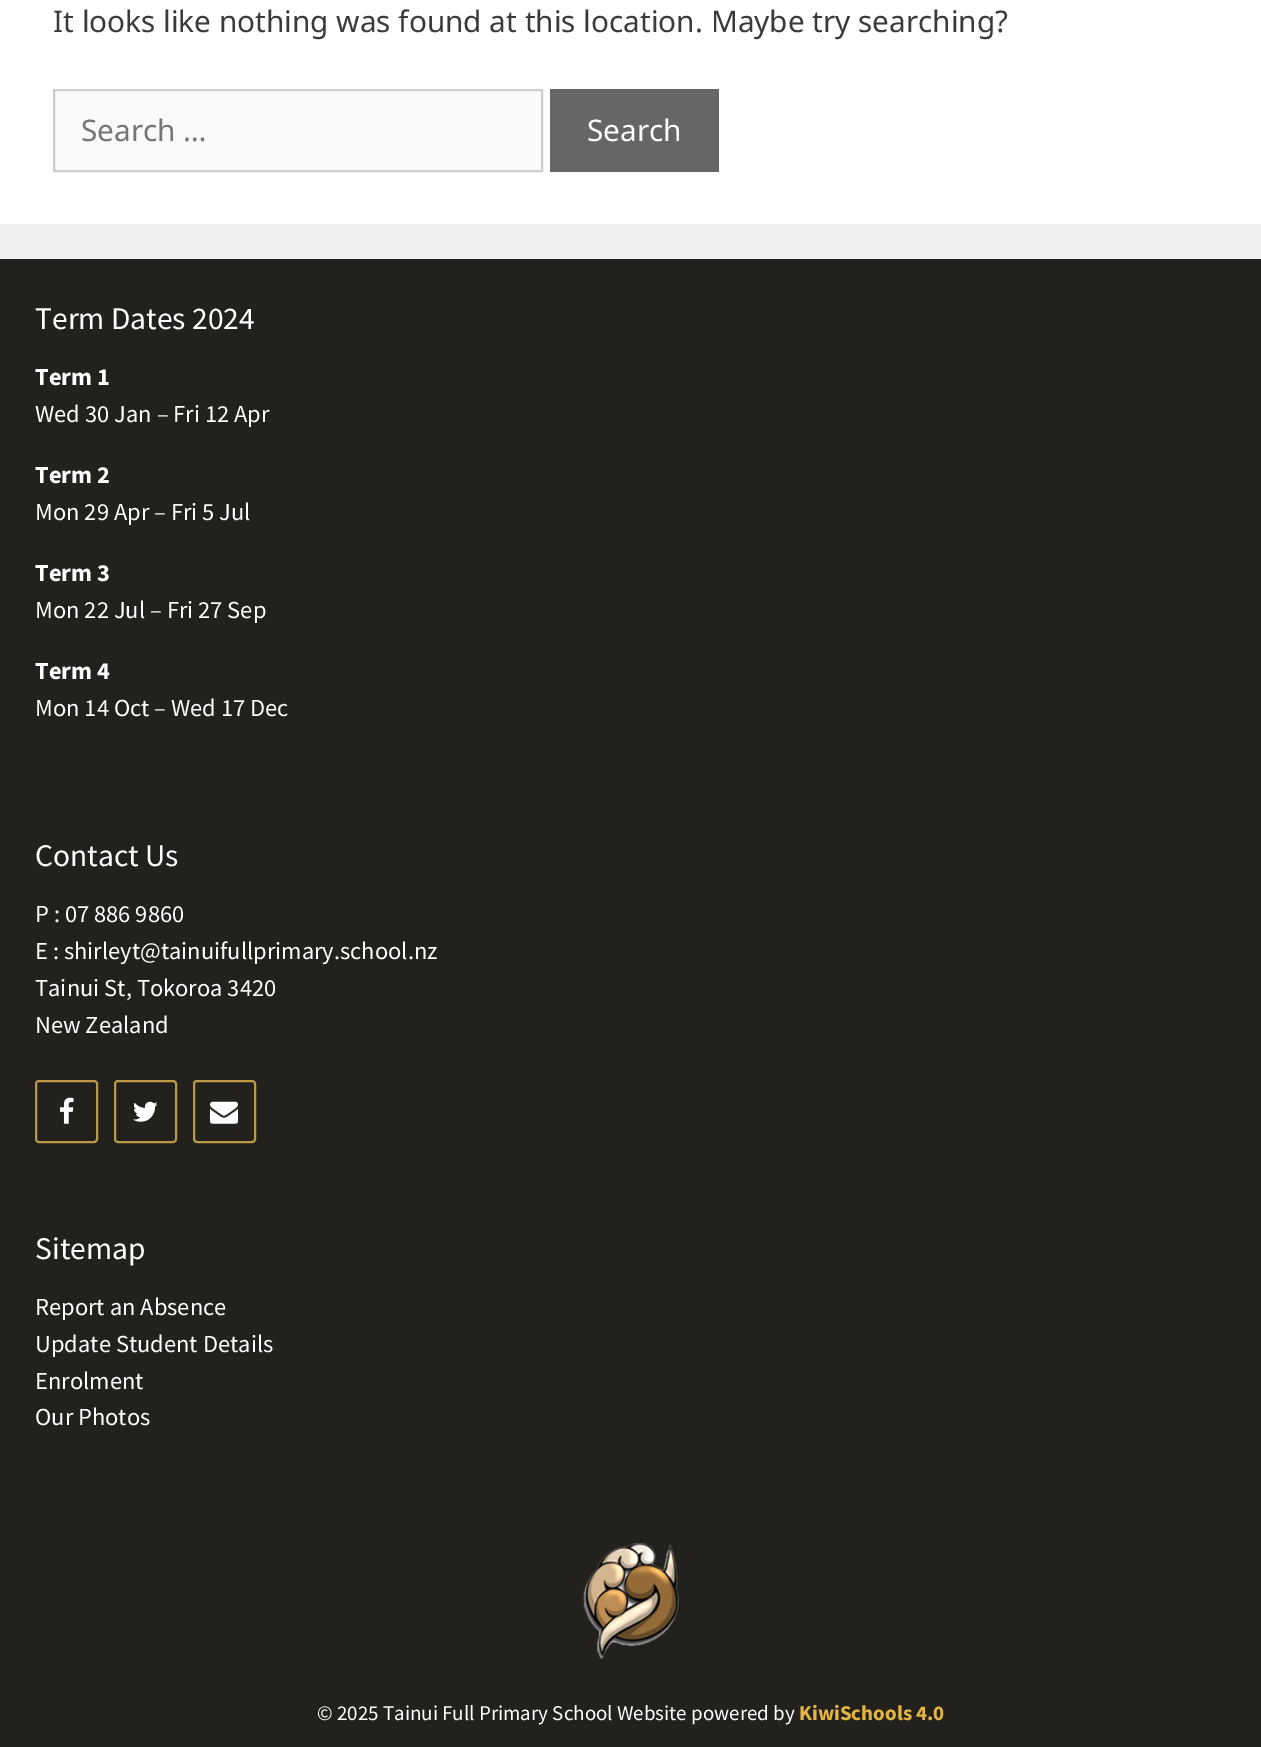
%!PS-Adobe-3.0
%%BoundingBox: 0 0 1261 1747
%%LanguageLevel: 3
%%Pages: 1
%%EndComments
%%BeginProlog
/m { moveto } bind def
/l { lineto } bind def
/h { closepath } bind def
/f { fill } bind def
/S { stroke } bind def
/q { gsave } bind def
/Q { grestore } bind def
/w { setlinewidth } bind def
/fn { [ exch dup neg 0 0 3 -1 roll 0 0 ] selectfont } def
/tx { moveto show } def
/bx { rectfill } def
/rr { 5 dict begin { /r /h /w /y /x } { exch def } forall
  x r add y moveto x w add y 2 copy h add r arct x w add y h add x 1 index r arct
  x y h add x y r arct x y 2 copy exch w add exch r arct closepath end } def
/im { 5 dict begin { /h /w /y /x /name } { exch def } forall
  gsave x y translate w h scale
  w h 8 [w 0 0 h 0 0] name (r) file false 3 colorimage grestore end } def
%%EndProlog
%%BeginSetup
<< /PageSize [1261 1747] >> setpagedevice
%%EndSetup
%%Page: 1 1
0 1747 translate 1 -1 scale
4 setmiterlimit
0.937 setgray
0 0 1261 1747 bx
1 setgray
0 0 1261 224 bx
/NotoSans-Regular 29.75 fn
0.227 setgray
(It looks like nothing was found at this location. Maybe try searching?) 53 32 tx
0.98 setgray
54 90 m 542 90 l 542 171 l 54 171 l h q f Q
0.8 setgray
2 w
S
0.459 setgray
(Search …) 81 141 tx
0.4 setgray
550 89 169 83 bx
1 setgray
(Search) 587 141 tx
0.133 0.129 0.118 setrgbcolor
0 259 1261 1488 bx
/SourceSansPro-Regular 31.5 fn
1 setgray
(Term Dates 2024) 35 329 tx
/SourceSansPro-Bold 24.5 fn
(Term 1) 35 385 tx
/SourceSansPro-Regular 24.5 fn
(Wed 30 Jan – Fri 12 Apr) 35 422 tx
/SourceSansPro-Bold 24.5 fn
(Term 2) 35 483 tx
/SourceSansPro-Regular 24.5 fn
(Mon 29 Apr – Fri 5 Jul) 35 520 tx
/SourceSansPro-Bold 24.5 fn
(Term 3) 35 581 tx
/SourceSansPro-Regular 24.5 fn
(Mon 22 Jul – Fri 27 Sep) 35 618 tx
/SourceSansPro-Bold 24.5 fn
(Term 4) 35 679 tx
/SourceSansPro-Regular 24.5 fn
(Mon 14 Oct – Wed 17 Dec) 35 716 tx
/SourceSansPro-Regular 31.5 fn
(Contact Us) 35 866 tx
/SourceSansPro-Regular 24.5 fn
(P : 07 886 9860) 35 922 tx
(E : shirleyt@tainuifullprimary.school.nz) 35 959 tx
(Tainui St, Tokoroa 3420) 35 996 tx
(New Zealand) 35 1033 tx
0.733 0.6 0.278 setrgbcolor
36 1081 61 61 3 rr S
(image0.raw) 59 1097 15 27 im
115 1081 61 61 3 rr S
(image1.raw) 133 1101 25 21 im
194 1081 61 61 3 rr S
(image2.raw) 210 1101 28 23 im
/SourceSansPro-Regular 31.5 fn
1 setgray
(Sitemap) 35 1259 tx
/SourceSansPro-Regular 24.5 fn
(Report an Absence) 35 1315 tx
(Update Student Details) 35 1352 tx
(Enrolment) 35 1389 tx
(Our Photos) 35 1425 tx
(image3.raw) 582 1543 97 116 im
/SourceSansPro-Regular 21 fn
(© 2025 Tainui Full Primary School Website powered by) 317 1720 tx
/SourceSansPro-Bold 21 fn
0.898 0.71 0.255 setrgbcolor
(KiwiSchools 4.0) 799 1720 tx
showpage
%%EOF
